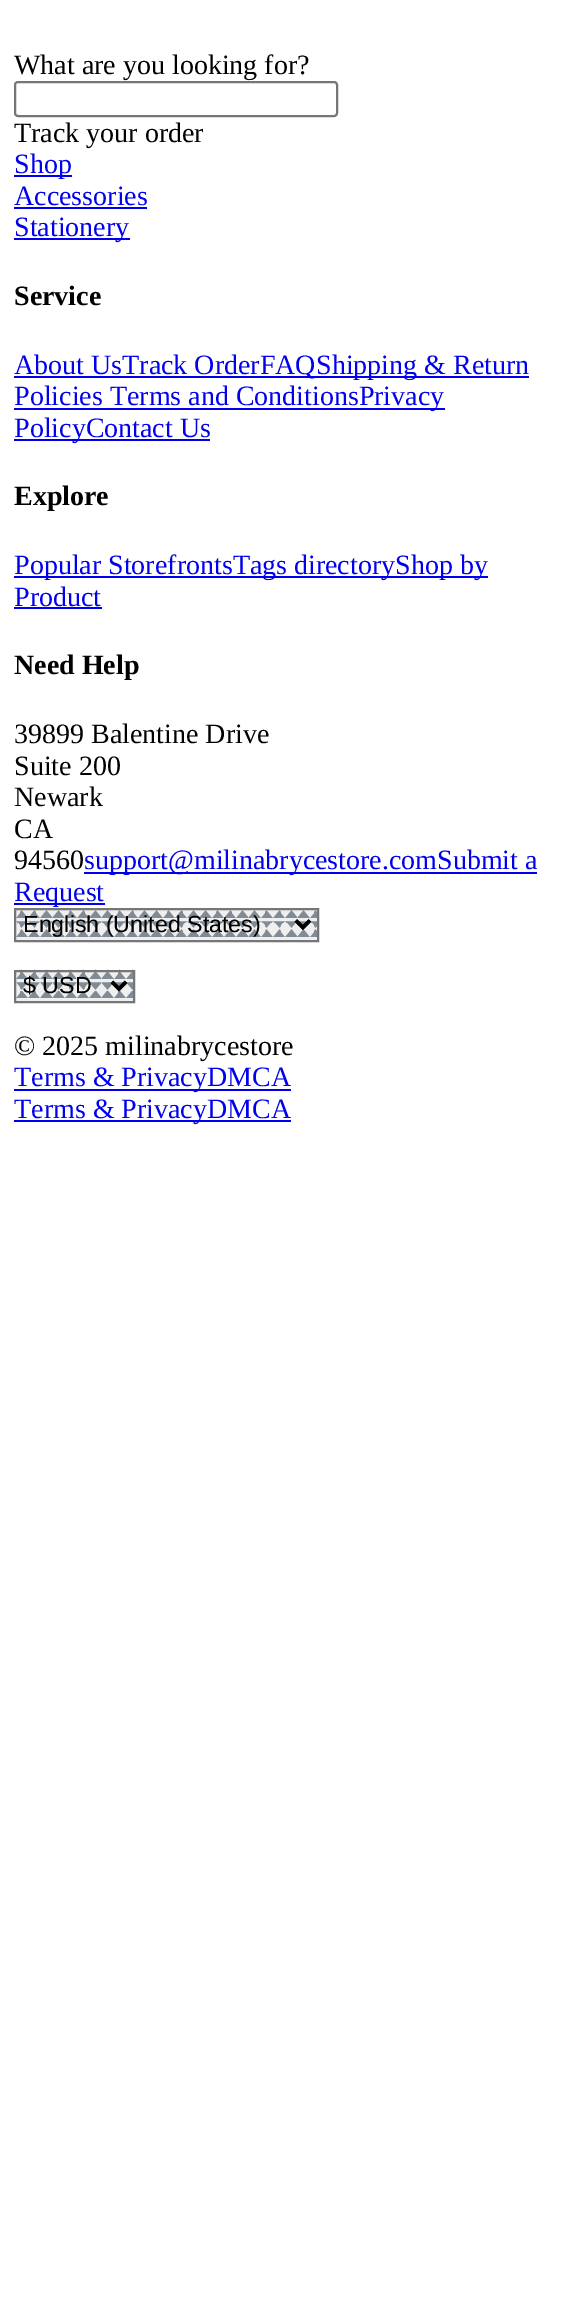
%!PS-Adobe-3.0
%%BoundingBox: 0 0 564 2321
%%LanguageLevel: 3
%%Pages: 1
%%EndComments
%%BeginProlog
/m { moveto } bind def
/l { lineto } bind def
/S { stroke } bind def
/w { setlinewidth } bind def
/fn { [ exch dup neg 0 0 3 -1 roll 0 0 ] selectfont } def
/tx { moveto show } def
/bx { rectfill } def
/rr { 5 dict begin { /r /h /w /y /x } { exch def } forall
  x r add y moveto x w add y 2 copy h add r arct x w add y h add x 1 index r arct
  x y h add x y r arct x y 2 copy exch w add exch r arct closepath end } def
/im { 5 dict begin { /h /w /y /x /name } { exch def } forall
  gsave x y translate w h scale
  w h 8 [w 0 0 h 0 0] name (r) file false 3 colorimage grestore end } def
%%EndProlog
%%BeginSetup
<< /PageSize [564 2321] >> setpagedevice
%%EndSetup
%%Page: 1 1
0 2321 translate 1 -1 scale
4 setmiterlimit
1 setgray
0 0 564 2321 bx
/LiberationSerif-Regular 28 fn
0 setgray
(What are you looking for?) 14 74 tx
0.463 setgray
2 w
15 82 322 34 3 rr S
0 setgray
(Track your order) 14 142 tx
0 0 0.933 setrgbcolor
14 175 58 2 bx
(Shop) 14 173 tx
(Accessories) 14 205 tx
14 207 133 2 bx
14 238 116 2 bx
(Stationery) 14 236 tx
/LiberationSerif-Bold 28 fn
0 setgray
(Service) 14 305 tx
0 0 0.933 setrgbcolor
14 376 301 2 bx
/LiberationSerif-Regular 28 fn
(About UsTrack OrderFAQ) 14 374 tx
315 376 214 2 bx
(Shipping & Return) 316 374 tx
14 408 431 2 bx
(Policies Terms and ConditionsPrivacy) 14 405 tx
14 439 196 2 bx
(PolicyContact Us) 14 437 tx
/LiberationSerif-Bold 28 fn
0 setgray
(Explore) 14 505 tx
0 0 0.933 setrgbcolor
14 576 474 2 bx
/LiberationSerif-Regular 28 fn
(Popular StorefrontsTags directoryShop by) 14 574 tx
(Product) 14 606 tx
14 607 88 2 bx
/LiberationSerif-Bold 28 fn
0 setgray
(Need Help) 14 674 tx
/LiberationSerif-Regular 28 fn
(39899 Balentine Drive) 14 743 tx
(Suite 200) 14 775 tx
(Newark) 14 806 tx
(CA) 14 838 tx
(94560) 14 869 tx
0 0 0.933 setrgbcolor
84 872 453 2 bx
(support@milinabrycestore.comSubmit a) 84 869 tx
14 903 91 2 bx
(Request) 14 901 tx
0.937 setgray
16 910 301 30 bx
(image0.raw) 16 910 301 27 im
0.463 setgray
15 909 303 32 rectstroke
0 setgray
3.5 w
296 920.5 m 303 927.5 l 310 920.5 l S
/LiberationSans-Regular 23.25 fn
(English \(United States\)) 23 932 tx
0.937 setgray
16 972 117 29 bx
(image1.raw) 16 969 118 29 im
0.463 setgray
2 w
15 971 119 31 rectstroke
0 setgray
3.5 w
112 982 m 119 989 l 126 982 l S
($ USD) 23 993 tx
/LiberationSerif-Regular 28 fn
(© 2025 milinabrycestore) 14 1055 tx
0 0 0.933 setrgbcolor
14 1089 277 2 bx
(Terms & PrivacyDMCA) 14 1086 tx
14 1120 277 2 bx
(Terms & PrivacyDMCA) 14 1118 tx
showpage
%%EOF
